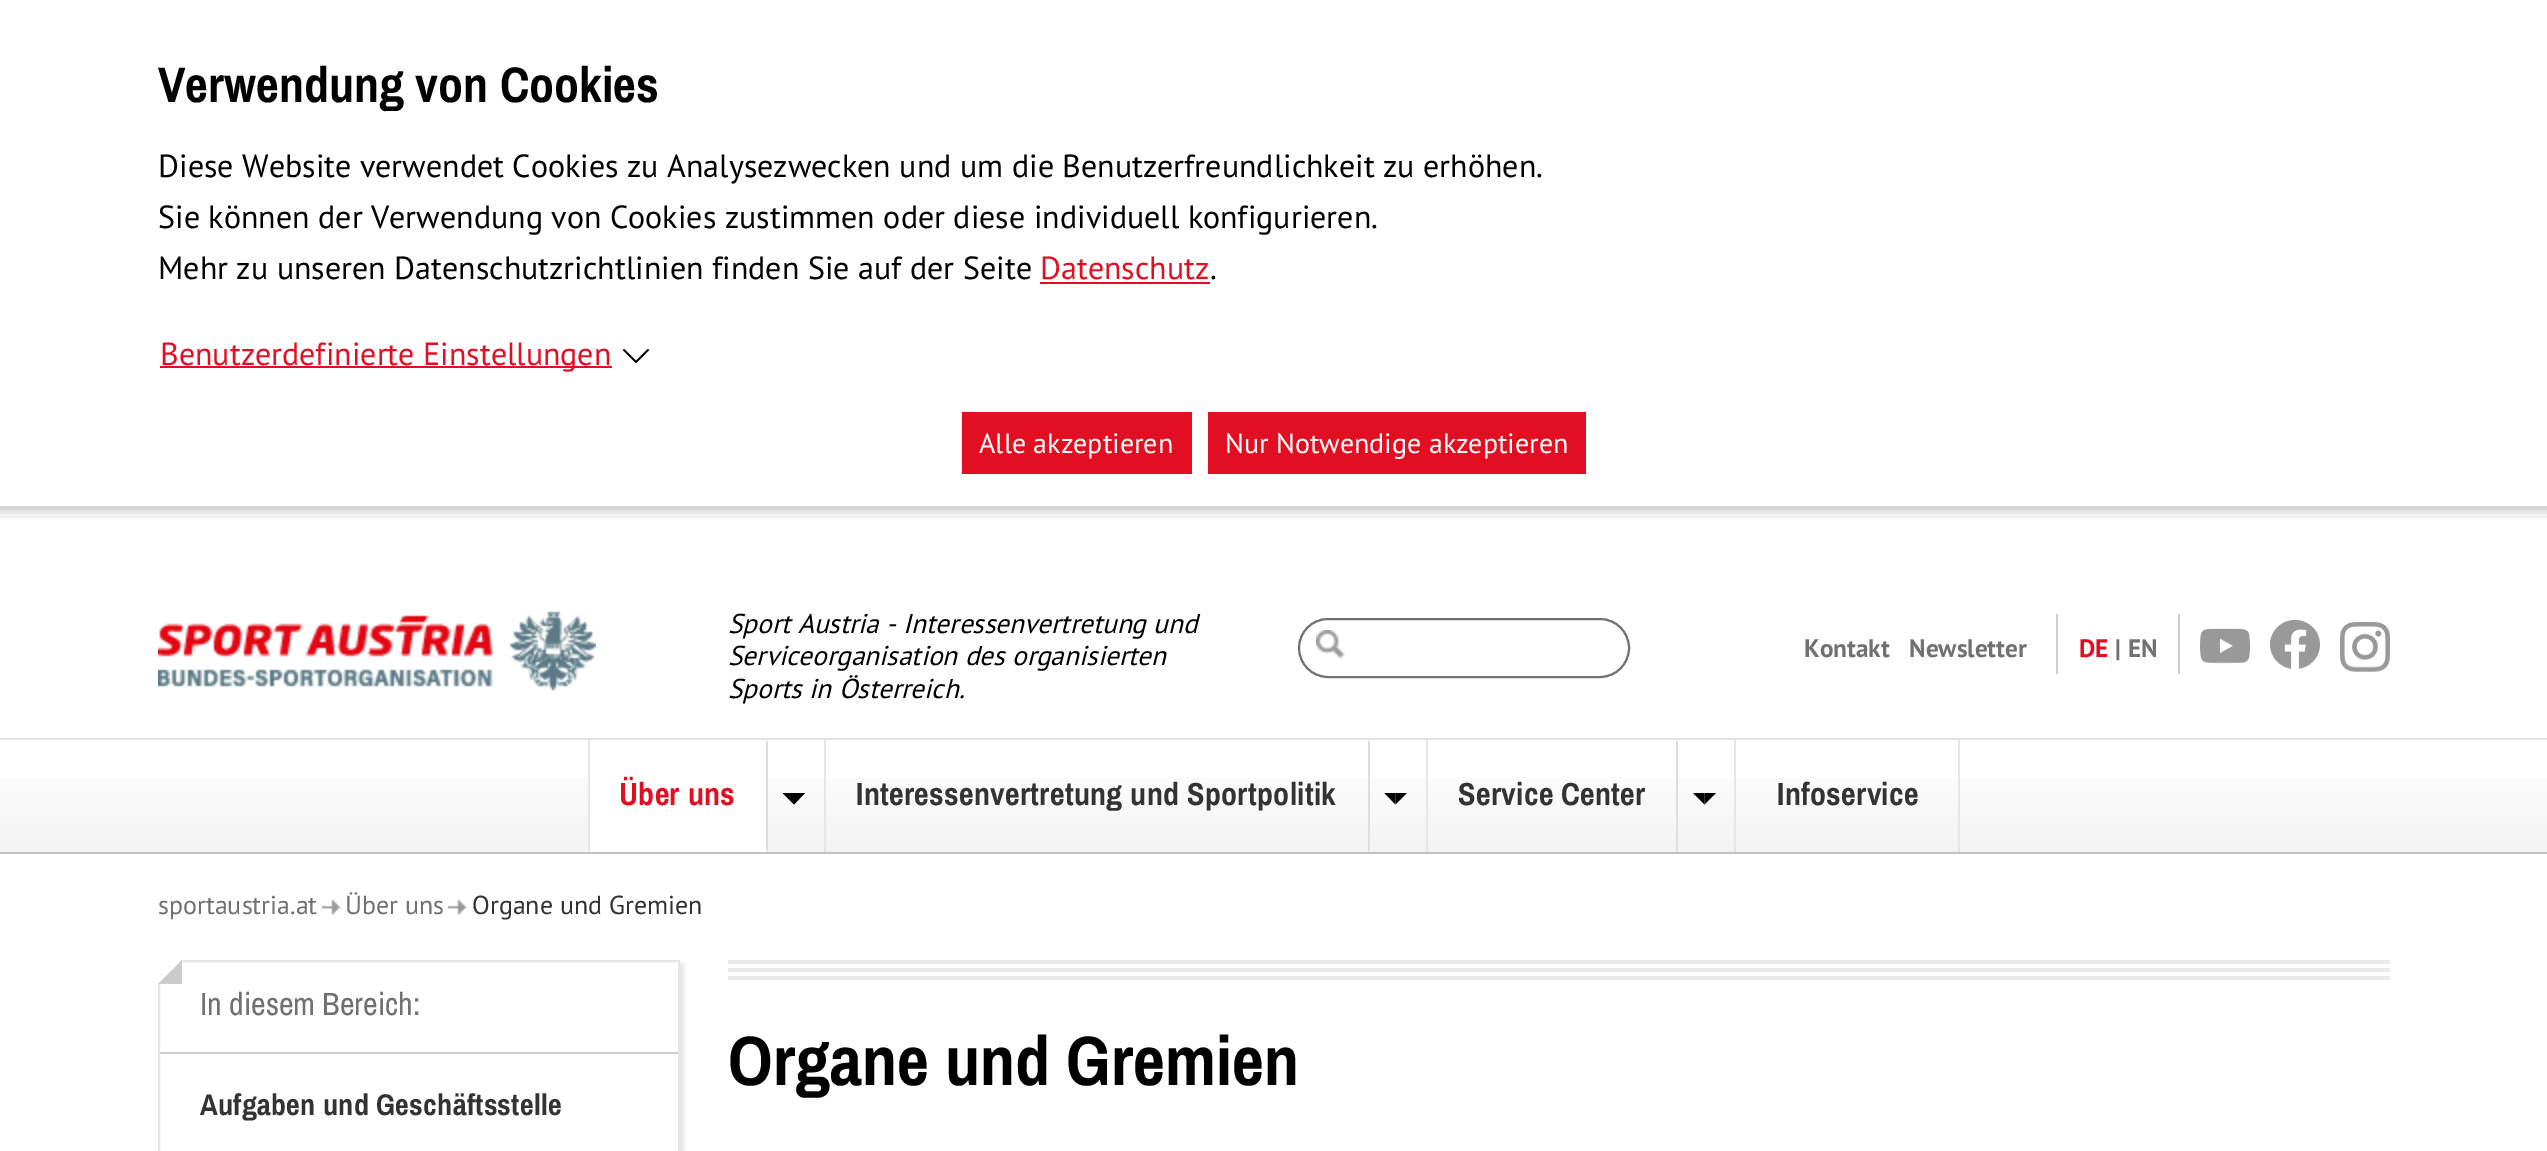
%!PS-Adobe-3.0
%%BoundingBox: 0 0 2547 1151
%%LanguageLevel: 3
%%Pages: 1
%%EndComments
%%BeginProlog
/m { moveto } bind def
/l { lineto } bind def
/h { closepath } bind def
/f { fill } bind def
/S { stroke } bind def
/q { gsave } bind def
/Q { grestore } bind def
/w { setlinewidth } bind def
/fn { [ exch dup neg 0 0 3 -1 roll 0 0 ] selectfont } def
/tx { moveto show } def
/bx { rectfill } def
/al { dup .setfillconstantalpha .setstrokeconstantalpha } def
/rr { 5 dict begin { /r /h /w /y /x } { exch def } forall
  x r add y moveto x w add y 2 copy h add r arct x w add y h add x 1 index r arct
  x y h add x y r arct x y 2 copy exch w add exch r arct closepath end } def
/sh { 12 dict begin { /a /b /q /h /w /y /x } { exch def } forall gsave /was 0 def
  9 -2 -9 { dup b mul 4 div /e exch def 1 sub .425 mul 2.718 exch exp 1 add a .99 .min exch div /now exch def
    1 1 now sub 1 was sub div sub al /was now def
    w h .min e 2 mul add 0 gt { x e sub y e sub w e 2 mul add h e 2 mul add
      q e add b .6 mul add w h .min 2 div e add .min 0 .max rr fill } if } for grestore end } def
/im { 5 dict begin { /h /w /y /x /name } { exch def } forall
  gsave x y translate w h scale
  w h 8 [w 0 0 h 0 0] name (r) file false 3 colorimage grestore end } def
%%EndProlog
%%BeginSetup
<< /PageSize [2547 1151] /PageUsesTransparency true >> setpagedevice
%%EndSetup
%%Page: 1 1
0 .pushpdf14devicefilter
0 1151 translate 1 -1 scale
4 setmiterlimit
1 setgray
0 0 2547 1151 bx
q
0 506 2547 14 rectclip
0 setgray
-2 -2 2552 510 0 8 0.32 sh
Q
/ArchivoNarrow-Bold 50 fn
0 setgray
(Verwendung von Cookies) 158 102 tx
/PTSans-Regular 32 fn
(Diese Website verwendet Cookies zu Analysezwecken und um die Benutzerfreundlichkeit zu erhöhen.) 158 177 tx
(Sie können der Verwendung von Cookies zustimmen oder diese individuell konfigurieren.) 158 228 tx
(Mehr zu unseren Datenschutzrichtlinien finden Sie auf der Seite) 158 279 tx
0.882 0.059 0.129 setrgbcolor
(Datenschutz) 1040 279 tx
1040 282 170 2 bx
0 setgray
(.) 1210 279 tx
0.882 0.059 0.129 setrgbcolor
160 366 452 2 bx
(Benutzerdefinierte Einstellungen) 160 365 tx
(image0.raw) 623 349 26 14 im
962 412 230 62 bx
/PTSans-Regular 28 fn
1 setgray
(Alle akzeptieren) 979 453 tx
0.882 0.059 0.129 setrgbcolor
1208 412 378 62 bx
1 setgray
(Nur Notwendige akzeptieren) 1225 453 tx
(image1.raw) 158 611 438 80 im
/PTSans-Italic 27.25 fn
0 setgray
(Sport Austria - Interessenvertretung und) 728 633 tx
(Serviceorganisation des organisierten) 728 665 tx
(Sports in Österreich.) 728 698 tx
(image2.raw) 1316 630 29 29 im
0.443 setgray
2 w
1299 619 330 58 29 rr S
/PTSans-Bold 25.25 fn
(Kontakt) 1804 657 tx
0.8 setgray
2056 614 2 60 bx
0.443 setgray
(Newsletter) 1909 657 tx
0.882 0.059 0.129 setrgbcolor
(DE) 2079 657 tx
0.443 setgray
(|) 2115 657 tx
0.8 setgray
2178 614 2 60 bx
0.443 setgray
(EN) 2128 657 tx
(image3.raw) 2200 628 50 36 im
(image4.raw) 2270 620 50 49 im
(image5.raw) 2340 622 50 50 im
q 0 777 m 2547 777 l 2547 852 l 0 852 l h clip newpath
<< /ShadingType 2 /ColorSpace /DeviceRGB /Coords [1274 740 1274 852] /Extend [true true] /Function << /FunctionType 3 /Domain [0 1] /Functions [<< /FunctionType 2 /Domain [0 1] /C0 [1 1 1] /C1 [1 1 1] /N 1 >> << /FunctionType 2 /Domain [0 1] /C0 [1 1 1] /C1 [0.953 0.953 0.953] /N 1 >>] /Bounds [0.15] /Encode [0 1 0 1] >> >> shfill Q
0.898 setgray
0 738 2547 2 bx
0.761 setgray
0 852 2547 2 bx
0.902 setgray
588 740 2 112 bx
1 setgray
590 777 176 75 bx
/ArchivoNarrow-Bold 32 fn
0.882 0.059 0.129 setrgbcolor
619 805 m 0.3 0 (Über uns) ashow
0.871 setgray
766 852 m 766 740 l 768 742 l 768 850 l h f
0 setgray
805 793 m 794 804.5 l 794 793 l h 794 804.5 m 782.5 793 l 794 793 l h f
0.902 setgray
824 740 2 112 bx
0.2 setgray
856 805 m 0.3 0 (Interessenvertretung und Sportpolitik) ashow
0.871 setgray
1368 852 m 1368 740 l 1370 742 l 1370 850 l h f
0 setgray
1407 793 m 1395.5 804.5 l 1395.5 793 l h f
1395.5 804.5 m 1384.5 793 l 1395.5 793 l h f
0.902 setgray
1426 740 2 112 bx
0.2 setgray
1458 805 m 0.3 0 (Service Center) ashow
0.871 setgray
1676 852 m 1676 740 l 1678 742 l 1678 850 l h f
0 setgray
1716 793 m 1704.5 804.5 l 1704.5 793 l h f
1704.5 804.5 m 1693 793 l 1704.5 793 l h f
0.902 setgray
1958 740 2 112 bx
1734 740 2 112 bx
0.2 setgray
1777 805 m 0.3 0 (Infoservice) ashow
/PTSans-Regular 26 fn
0.443 setgray
(sportaustria.at) 158 914 tx
(image6.raw) 322 899 19 16 im
(Über uns) 345 914 tx
(image7.raw) 448 899 19 16 im
0.2 setgray
(Organe und Gremien) 472 914 tx
q
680 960 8 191 rectclip
0.898 setgray
162 964 522 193 0 2 1 sh
Q
0.898 setgray
159 961 520 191 rectstroke
1 setgray
158 960 m 182 960 l 158 984 l h f
0.8 setgray
182 960 m 182 984 l 158 984 l h f
/ArchivoNarrow-Regular 32 fn
0.443 setgray
(In diesem Bereich:) 200 1015 tx
0.8 setgray
160 1052 518 2 bx
/ArchivoNarrow-Bold 30 fn
0.2 setgray
200 1115 m 0.3 0 (Aufgaben und Geschäftsstelle) ashow
0.918 setgray
728 960 1662 4 bx
728 968 1662 4 bx
728 976 1662 4 bx
/ArchivoNarrow-Bold 70 fn
0 setgray
(Organe und Gremien) 728 1085 tx
.poppdf14devicefilter showpage
%%EOF
